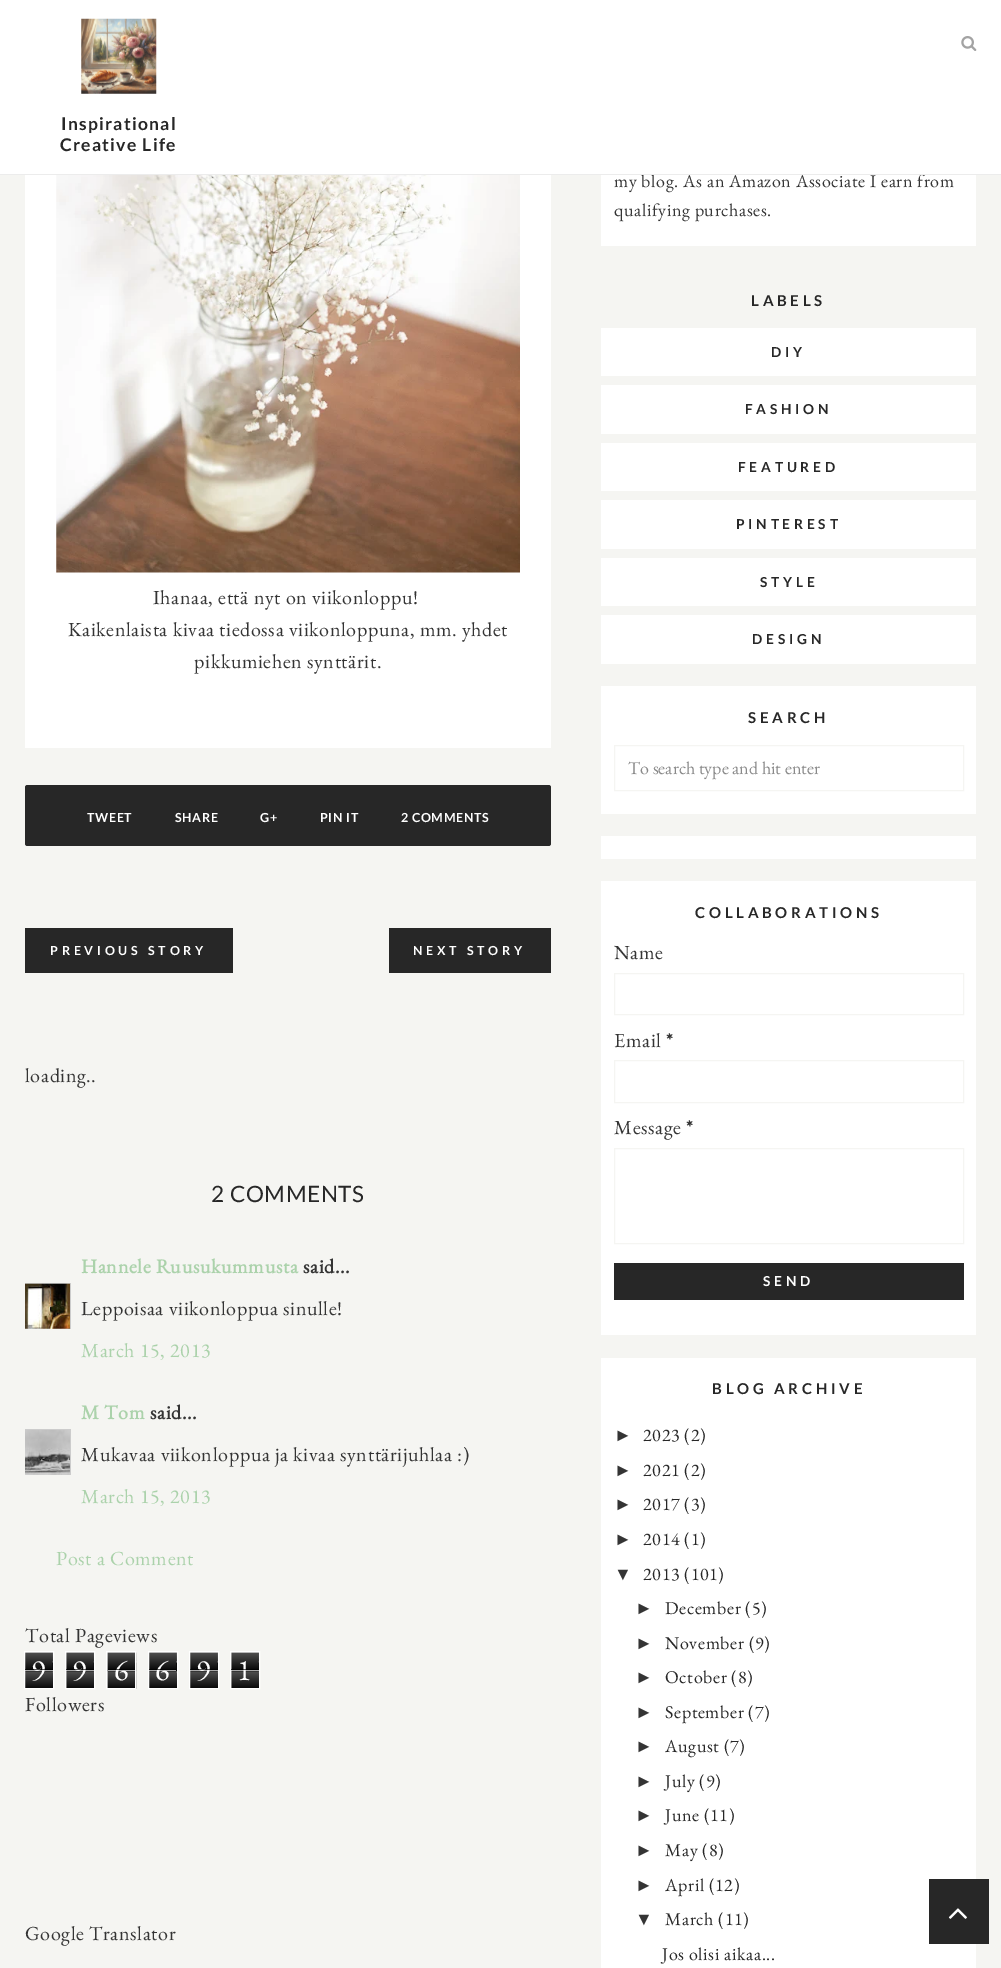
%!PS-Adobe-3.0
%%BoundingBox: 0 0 1001 1968
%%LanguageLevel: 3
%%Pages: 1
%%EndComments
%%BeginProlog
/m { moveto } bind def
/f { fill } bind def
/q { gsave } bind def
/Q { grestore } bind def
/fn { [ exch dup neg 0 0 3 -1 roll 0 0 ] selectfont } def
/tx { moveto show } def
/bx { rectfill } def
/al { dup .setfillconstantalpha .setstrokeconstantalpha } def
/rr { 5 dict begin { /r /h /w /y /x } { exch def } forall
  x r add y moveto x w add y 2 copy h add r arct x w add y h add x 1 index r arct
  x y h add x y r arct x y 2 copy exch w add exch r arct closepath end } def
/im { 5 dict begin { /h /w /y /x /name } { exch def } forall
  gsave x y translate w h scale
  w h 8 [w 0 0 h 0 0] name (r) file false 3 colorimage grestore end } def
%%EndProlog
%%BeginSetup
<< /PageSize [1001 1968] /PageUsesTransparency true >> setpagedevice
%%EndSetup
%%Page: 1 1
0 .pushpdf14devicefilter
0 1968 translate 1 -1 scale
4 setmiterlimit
0.961 0.961 0.949 setrgbcolor
0 0 1001 1968 bx
1 setgray
0 0 1001 174 bx
601 175 375 71 bx
/EBGaramond-Regular 18 fn
0.204 setgray
614 187 m 0.62 0 (my blog. As an Amazon Associate I earn from) ashow
0.925 setgray
0 174 1001 1 bx
(image0.raw) 961 36 16 15 im
(image1.raw) 81 18 76 76 im
/Lato-Bold 17.5 fn
0.153 setgray
61 130 m 1.25 0 (Inspirational) ashow
60 151 m 1.25 0 (Creative Life) ashow
1 setgray
25 175 526 573 bx
(image2.raw) 56 175 464 398 im
/EBGaramond-Regular 20 fn
0.204 setgray
153 604 m 0.62 0 (Ihanaa, että nyt on viikonloppu!) ashow
68 636 m 0.62 0 (Kaikenlaista kivaa tiedossa viikonloppuna, mm. yhdet) ashow
194 668 m 0.62 0 (pikkumiehen synttärit.) ashow
0.153 setgray
25 785 526 61 2.5 rr f
/Lato-Bold 12.5 fn
1 setgray
87 822 m 0.62 0 (TWEET) ashow
175 822 m 0.62 0 (SHARE) ashow
260 822 m 0.62 0 (G+) ashow
320 822 m 0.62 0 (PIN IT) ashow
401 822 m 0.62 0 (2 COMMENTS) ashow
0.153 setgray
25 928 208 45 bx
1 setgray
50 955 m 3.75 0 (PREVIOUS STORY) ashow
0.153 setgray
389 928 162 45 bx
1 setgray
413 955 m 3.75 0 (NEXT STORY) ashow
/EBGaramond-Regular 20 fn
0.204 setgray
25 1082 m 0.62 0 (loading..) ashow
/Lato-Regular 22.5 fn
0.153 setgray
211 1202 m 0.62 0 (2 COMMENTS) ashow
/EBGaramond-Bold 20 fn
0.671 0.824 0.671 setrgbcolor
81 1273 m 0.62 0 (Hannele Ruusukummusta) ashow
0.204 setgray
303 1273 m 0.62 0 (said...) ashow
q
25 1283 46 46 rectclip
0.8 setgray
19.5 1283.5 51 51 rectstroke
Q
(image3.raw) 25 1283 45 46 im
/EBGaramond-Regular 20 fn
81 1315 m 0.62 0 (Leppoisaa viikonloppua sinulle!) ashow
0.671 0.824 0.671 setrgbcolor
81 1357 m 0.62 0 (March 15, 2013) ashow
/EBGaramond-Bold 20 fn
81 1419 m 0.62 0 (M Tom) ashow
0.204 setgray
150 1419 m 0.62 0 (said...) ashow
q
25 1429 46 46 rectclip
0.8 setgray
19.5 1429.5 51 51 rectstroke
Q
(image4.raw) 25 1430 45 45 im
/EBGaramond-Regular 20 fn
81 1461 m 0.62 0 (Mukavaa viikonloppua ja kivaa synttärijuhlaa :\)) ashow
0.671 0.824 0.671 setrgbcolor
81 1503 m 0.62 0 (March 15, 2013) ashow
56 1565 m 0.62 0 (Post a Comment) ashow
0.204 setgray
25 1642 m 0.62 0 (Total Pageviews) ashow
(image5.raw) 25 1652 28 36 im
1 setgray
24.5 1651.5 29 37 rectstroke
/EBGaramond-Regular 30 fn
31 1680 m 0.62 0 (9) ashow
0.65 al
0 setgray
25 1669 28 1 bx
1 setgray
25 1670 28 1 bx
1 al
(image6.raw) 66 1652 28 36 im
65.5 1651.5 29 37 rectstroke
72 1680 m 0.62 0 (9) ashow
0.65 al
0 setgray
66 1669 28 1 bx
1 setgray
66 1670 28 1 bx
1 al
(image7.raw) 107 1652 30 37 im
106.5 1651.5 29 37 rectstroke
114 1680 m 0.62 0 (6) ashow
0.65 al
0 setgray
108 1669 27 1 bx
1 setgray
108 1670 27 1 bx
1 al
(image8.raw) 149 1652 28 36 im
148.5 1651.5 29 37 rectstroke
155 1680 m 0.62 0 (6) ashow
0.65 al
0 setgray
149 1669 27 1 bx
1 setgray
149 1670 27 1 bx
1 al
(image9.raw) 190 1652 28 36 im
189.5 1651.5 29 37 rectstroke
196 1680 m 0.62 0 (9) ashow
0.65 al
0 setgray
190 1669 28 1 bx
1 setgray
190 1670 28 1 bx
1 al
(image6.raw) 231 1652 28 36 im
230.5 1651.5 29 37 rectstroke
237 1680 m 0.62 0 (1) ashow
0.65 al
0 setgray
231 1669 28 1 bx
1 setgray
231 1670 28 1 bx
/EBGaramond-Regular 20 fn
1 al
0.204 setgray
25 1711 m 0.62 0 (Followers) ashow
25 1940 m 0.62 0 (Google Translator) ashow
/EBGaramond-Regular 18 fn
614 216 m 0.62 0 (qualifying purchases.) ashow
/Lato-Bold 15 fn
0.153 setgray
751 306 m 3.75 0 (LABELS) ashow
1 setgray
601 328 375 48 bx
/Lato-Bold 13.75 fn
0.153 setgray
771 357 m 3.75 0 (DIY) ashow
1 setgray
601 385 375 49 bx
0.153 setgray
745 414 m 3.75 0 (FASHION) ashow
1 setgray
601 443 375 48 bx
0.153 setgray
738 472 m 3.75 0 (FEATURED) ashow
1 setgray
601 500 375 49 bx
0.153 setgray
736 529 m 3.75 0 (PINTEREST) ashow
1 setgray
601 558 375 48 bx
0.153 setgray
760 587 m 3.75 0 (STYLE) ashow
1 setgray
601 615 375 49 bx
0.153 setgray
752 644 m 3.75 0 (DESIGN) ashow
1 setgray
601 686 375 128 bx
/Lato-Bold 15 fn
0.153 setgray
748 723 m 3.75 0 (SEARCH) ashow
0.961 0.961 0.949 setrgbcolor
614.5 745.5 349 45 rectstroke
/EBGaramond-Regular 18 fn
0.537 setgray
(To search type and hit enter) 628 774 tx
1 setgray
601 836 375 23 bx
601 881 375 454 bx
/Lato-Bold 15 fn
0.153 setgray
695 918 m 3.75 0 (COLLABORATIONS) ashow
/EBGaramond-Regular 20 fn
0.204 setgray
614 959 m 0.62 0 (Name) ashow
0.961 0.961 0.949 setrgbcolor
614.5 973.5 349 41 rectstroke
0.204 setgray
614 1047 m 0.62 0 (Email) ashow
/EBGaramond-Bold 20 fn
666 1047 m 0.62 0 (*) ashow
0.961 0.961 0.949 setrgbcolor
614.5 1060.5 349 42 rectstroke
/EBGaramond-Regular 20 fn
0.204 setgray
614 1134 m 0.62 0 (Message) ashow
/EBGaramond-Bold 20 fn
686 1134 m 0.62 0 (*) ashow
0.961 0.961 0.949 setrgbcolor
614.5 1148.5 349 95 rectstroke
0.153 setgray
614 1263 350 37 bx
/Lato-Bold 13.75 fn
1 setgray
763 1286 m 3.75 0 (SEND) ashow
601 1358 375 610 bx
/Lato-Bold 15 fn
0.153 setgray
712 1394 m 3.75 0 (BLOG ARCHIVE) ashow
/LiberationSans-Regular 18 fn
0.204 setgray
614 1441 m 0.62 0 (►) ashow
/EBGaramond-Regular 18 fn
0.153 setgray
643 1441 m 0.62 0 (2023 \(2\)) ashow
/LiberationSans-Regular 18 fn
0.204 setgray
614 1476 m 0.62 0 (►) ashow
/EBGaramond-Regular 18 fn
0.153 setgray
643 1476 m 0.62 0 (2021 \(2\)) ashow
/LiberationSans-Regular 18 fn
0.204 setgray
614 1510 m 0.62 0 (►) ashow
/EBGaramond-Regular 18 fn
0.153 setgray
643 1510 m 0.62 0 (2017 \(3\)) ashow
/LiberationSans-Regular 18 fn
0.204 setgray
614 1545 m 0.62 0 (►) ashow
/EBGaramond-Regular 18 fn
0.153 setgray
643 1545 m 0.62 0 (2014 \(1\)) ashow
/LiberationSans-Regular 18 fn
0.204 setgray
614 1580 m 0.62 0 (▼) ashow
/EBGaramond-Regular 18 fn
0.153 setgray
643 1580 m 0.62 0 (2013 \(101\)) ashow
/LiberationSans-Regular 18 fn
0.204 setgray
635 1614 m 0.62 0 (►) ashow
/EBGaramond-Regular 18 fn
0.153 setgray
665 1614 m 0.62 0 (December \(5\)) ashow
/LiberationSans-Regular 18 fn
0.204 setgray
635 1649 m 0.62 0 (►) ashow
/EBGaramond-Regular 18 fn
0.153 setgray
665 1649 m 0.62 0 (November \(9\)) ashow
/LiberationSans-Regular 18 fn
0.204 setgray
635 1683 m 0.62 0 (►) ashow
/EBGaramond-Regular 18 fn
0.153 setgray
665 1683 m 0.62 0 (October \(8\)) ashow
/LiberationSans-Regular 18 fn
0.204 setgray
635 1718 m 0.62 0 (►) ashow
/EBGaramond-Regular 18 fn
0.153 setgray
665 1718 m 0.62 0 (September \(7\)) ashow
/LiberationSans-Regular 18 fn
0.204 setgray
635 1752 m 0.62 0 (►) ashow
/EBGaramond-Regular 18 fn
0.153 setgray
665 1752 m 0.62 0 (August \(7\)) ashow
/LiberationSans-Regular 18 fn
0.204 setgray
635 1787 m 0.62 0 (►) ashow
/EBGaramond-Regular 18 fn
0.153 setgray
665 1787 m 0.62 0 (July \(9\)) ashow
/LiberationSans-Regular 18 fn
0.204 setgray
635 1821 m 0.62 0 (►) ashow
/EBGaramond-Regular 18 fn
0.153 setgray
665 1821 m 0.62 0 (June \(11\)) ashow
/LiberationSans-Regular 18 fn
0.204 setgray
635 1856 m 0.62 0 (►) ashow
/EBGaramond-Regular 18 fn
0.153 setgray
665 1856 m 0.62 0 (May \(8\)) ashow
/LiberationSans-Regular 18 fn
0.204 setgray
635 1891 m 0.62 0 (►) ashow
/EBGaramond-Regular 18 fn
0.153 setgray
665 1891 m 0.62 0 (April \(12\)) ashow
/LiberationSans-Regular 18 fn
0.204 setgray
635 1925 m 0.62 0 (▼) ashow
/EBGaramond-Regular 18 fn
0.153 setgray
665 1925 m 0.62 0 (March \(11\)) ashow
662 1960 m 0.62 0 (Jos olisi aikaa...) ashow
929 1879 60 65 bx
(image10.raw) 948 1908 19 11 im
.poppdf14devicefilter showpage
%%EOF
